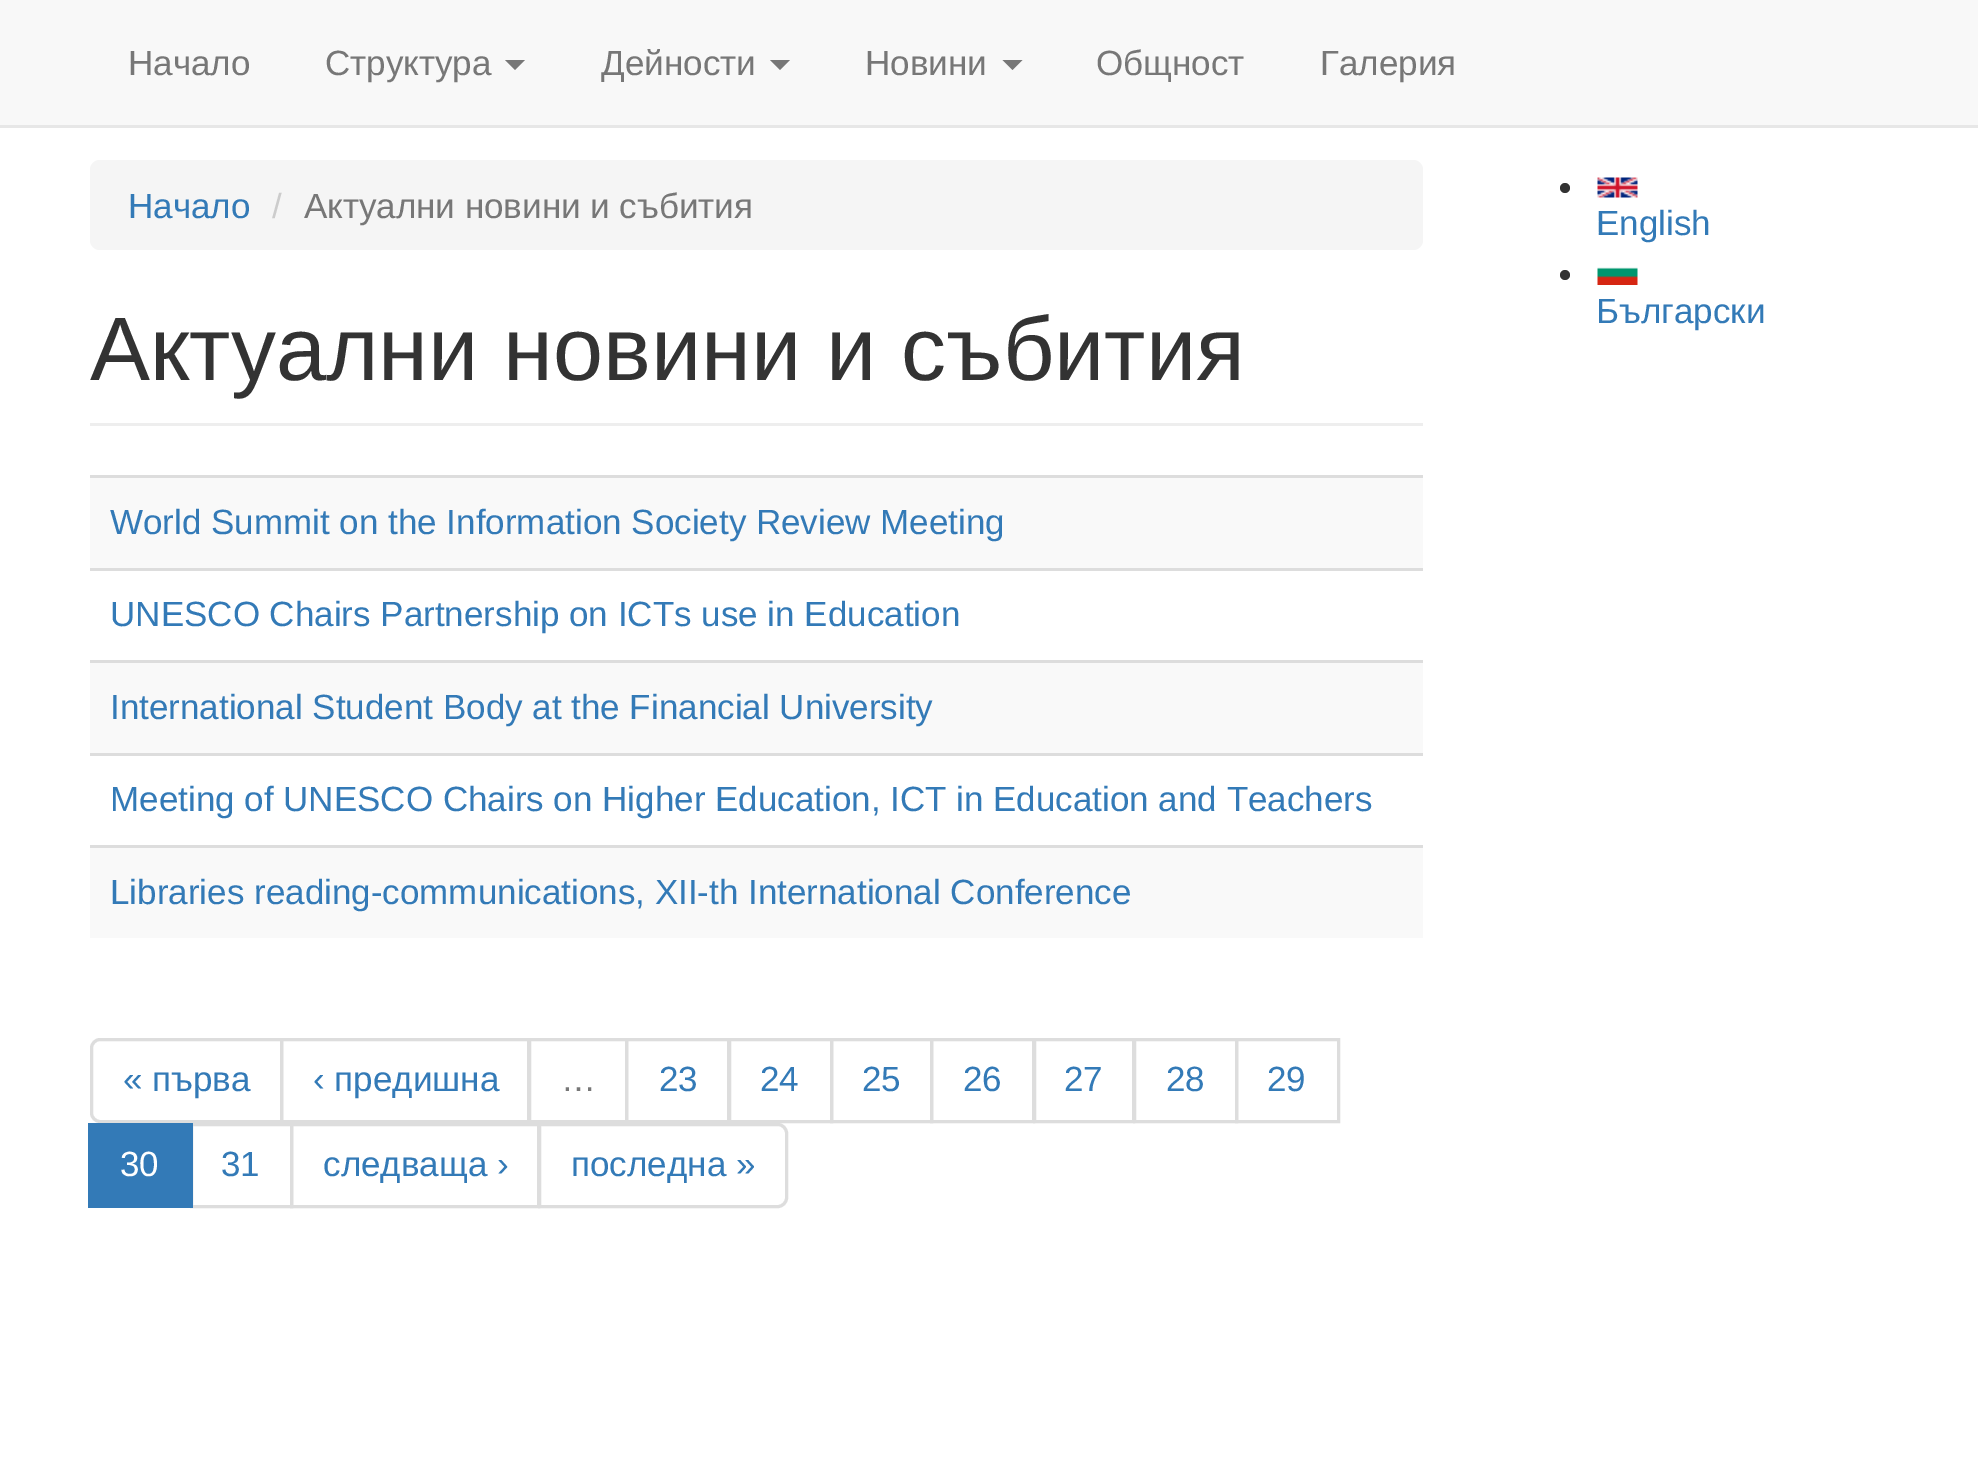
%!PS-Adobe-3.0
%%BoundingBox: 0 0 1978 1461
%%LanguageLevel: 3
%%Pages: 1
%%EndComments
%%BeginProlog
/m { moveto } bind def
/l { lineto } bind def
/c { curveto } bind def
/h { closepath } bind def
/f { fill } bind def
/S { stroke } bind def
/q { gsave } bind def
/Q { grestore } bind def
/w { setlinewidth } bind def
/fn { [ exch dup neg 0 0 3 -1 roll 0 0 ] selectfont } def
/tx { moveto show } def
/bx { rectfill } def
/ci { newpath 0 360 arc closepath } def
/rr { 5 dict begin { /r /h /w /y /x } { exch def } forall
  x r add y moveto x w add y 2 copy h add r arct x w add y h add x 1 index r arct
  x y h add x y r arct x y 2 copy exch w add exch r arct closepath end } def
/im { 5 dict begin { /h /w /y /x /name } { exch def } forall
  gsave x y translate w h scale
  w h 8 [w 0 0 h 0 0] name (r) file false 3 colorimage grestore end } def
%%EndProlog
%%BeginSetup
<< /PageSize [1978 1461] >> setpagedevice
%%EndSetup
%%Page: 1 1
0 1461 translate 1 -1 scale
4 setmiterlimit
1 setgray
0 0 1978 1461 bx
0.973 setgray
0 0 1978 125 bx
0.906 setgray
0 125 1978 3 bx
/LiberationSans-Regular 35 fn
0.467 setgray
(Начало) 128 75 tx
(Структура) 325 75 tx
505 60 m 525 60 l 515 70 l h f
(Дейности) 601 75 tx
770 60 m 790 60 l 780 70 l h f
(Новини) 865 75 tx
1002.5 60 m 1022.5 60 l 1012.5 70 l h f
(Общност) 1096 75 tx
(Галерия) 1320 75 tx
0.961 setgray
90 160 1333 90 10 rr f
0.2 0.478 0.718 setrgbcolor
(Начало) 128 218 tx
0.8 setgray
(/) 272 218 tx
0.467 setgray
(Актуални новини и събития) 304 218 tx
0.933 setgray
90 423 1333 3 bx
/LiberationSans-Regular 90 fn
0.2 setgray
(Актуални новини и събития) 90 380 tx
0.976 setgray
90 478 1333 90 bx
0.867 setgray
90 475 1333 3 bx
/LiberationSans-Regular 35 fn
0.2 0.478 0.718 setrgbcolor
(World Summit on the Information Society Review Meeting) 110 534 tx
0.867 setgray
90 568 1333 3 bx
0.2 0.478 0.718 setrgbcolor
(UNESCO Chairs Partnership on ICTs use in Education) 110 626 tx
0.976 setgray
90 663 1333 90 bx
0.867 setgray
90 660 1333 3 bx
0.2 0.478 0.718 setrgbcolor
(International Student Body at the Financial University) 110 719 tx
0.867 setgray
90 753 1333 3 bx
0.2 0.478 0.718 setrgbcolor
(Meeting of UNESCO Chairs on Higher Education, ICT in Education and Teachers) 110 811 tx
0.976 setgray
90 848 1333 90 bx
0.867 setgray
90 845 1333 3 bx
0.2 0.478 0.718 setrgbcolor
(Libraries reading-communications, XII-th International Conference) 110 904 tx
0.867 setgray
3 w
100 1039.5 m 281.5 1039.5 l 281.5 1121.5 l 100 1121.5 l 95.5 1121.5 91.5 1117.5 91.5 1113 c 91.5 1048 l 91.5 1043.5 95.5 1039.5 100 1039.5 c h S
0.2 0.478 0.718 setrgbcolor
(« първа) 123 1091 tx
0.867 setgray
281.5 1039.5 247 82 rectstroke
0.2 0.478 0.718 setrgbcolor
(‹ предишна) 313 1091 tx
0.867 setgray
529.5 1039.5 97 82 rectstroke
0.467 setgray
(…) 561 1091 tx
0.867 setgray
626.5 1039.5 102 82 rectstroke
0.2 0.478 0.718 setrgbcolor
(23) 659 1091 tx
0.867 setgray
729.5 1039.5 102 82 rectstroke
0.2 0.478 0.718 setrgbcolor
(24) 760 1091 tx
0.867 setgray
831.5 1039.5 100 82 rectstroke
0.2 0.478 0.718 setrgbcolor
(25) 862 1091 tx
0.867 setgray
931.5 1039.5 102 82 rectstroke
0.2 0.478 0.718 setrgbcolor
(26) 963 1091 tx
0.867 setgray
1034.5 1039.5 99 82 rectstroke
0.2 0.478 0.718 setrgbcolor
(27) 1064 1091 tx
0.867 setgray
1134.5 1039.5 102 82 rectstroke
0.2 0.478 0.718 setrgbcolor
(28) 1166 1091 tx
0.867 setgray
1236.5 1039.5 102 82 rectstroke
0.2 0.478 0.718 setrgbcolor
(29) 1267 1091 tx
0.867 setgray
191.5 1124.5 100 82 rectstroke
0.2 0.478 0.718 setrgbcolor
88 1123 105 85 bx
1 setgray
(30) 120 1176 tx
0.2 0.478 0.718 setrgbcolor
(31) 221 1176 tx
0.867 setgray
291.5 1124.5 247 82 rectstroke
0.2 0.478 0.718 setrgbcolor
(следваща ›) 323 1176 tx
1 setgray
539.5 1124.5 m 778 1124.5 l 782.5 1124.5 786.5 1128.5 786.5 1133 c 786.5 1198 l 786.5 1202.5 782.5 1206.5 778 1206.5 c 539.5 1206.5 l h q f Q
0.867 setgray
S
0.2 0.478 0.718 setrgbcolor
(последна ») 571 1176 tx
0.2 setgray
1565 188 5 ci f
(image0.raw) 1597 177 41 21 im
0.2 0.478 0.718 setrgbcolor
(English) 1596 235 tx
0.2 setgray
1565 275 5 ci f
(image1.raw) 1597 267 41 18 im
0.2 0.478 0.718 setrgbcolor
(Български) 1596 323 tx
showpage
%%EOF
